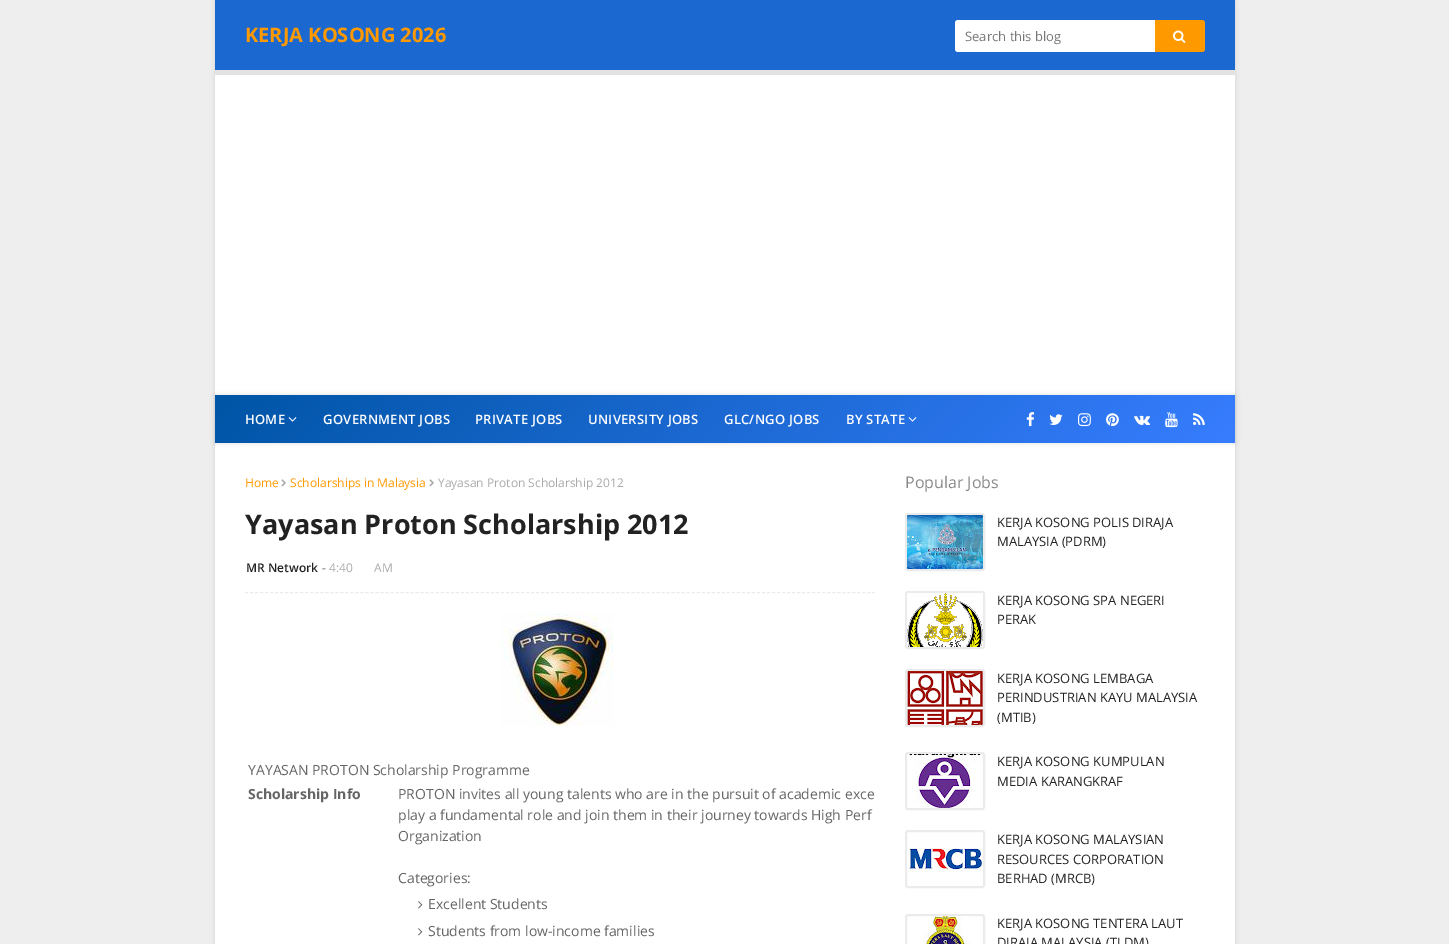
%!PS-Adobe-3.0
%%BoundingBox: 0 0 1449 944
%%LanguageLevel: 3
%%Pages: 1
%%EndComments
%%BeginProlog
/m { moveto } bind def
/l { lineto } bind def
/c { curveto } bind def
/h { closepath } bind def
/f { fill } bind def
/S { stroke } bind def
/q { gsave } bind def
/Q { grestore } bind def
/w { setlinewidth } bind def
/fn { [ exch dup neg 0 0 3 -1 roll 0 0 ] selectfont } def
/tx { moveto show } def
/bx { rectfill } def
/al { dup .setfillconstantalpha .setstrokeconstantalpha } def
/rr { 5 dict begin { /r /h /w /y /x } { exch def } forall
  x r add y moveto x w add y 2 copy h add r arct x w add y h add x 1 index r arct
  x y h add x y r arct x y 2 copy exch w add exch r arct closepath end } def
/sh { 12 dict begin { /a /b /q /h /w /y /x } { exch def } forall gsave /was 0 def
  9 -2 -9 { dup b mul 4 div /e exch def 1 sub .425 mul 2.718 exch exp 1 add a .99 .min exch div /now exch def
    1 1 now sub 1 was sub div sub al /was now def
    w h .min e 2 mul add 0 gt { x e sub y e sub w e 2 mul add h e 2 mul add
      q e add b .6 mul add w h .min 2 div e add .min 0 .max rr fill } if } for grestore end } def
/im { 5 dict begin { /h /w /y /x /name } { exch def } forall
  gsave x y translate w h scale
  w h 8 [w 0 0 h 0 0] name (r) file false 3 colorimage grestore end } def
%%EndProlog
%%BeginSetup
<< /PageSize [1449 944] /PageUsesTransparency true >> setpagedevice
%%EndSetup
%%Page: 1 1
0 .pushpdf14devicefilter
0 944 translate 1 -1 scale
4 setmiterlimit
0.933 setgray
0 0 1449 944 bx
0 setgray
215 0 1020 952 0 2.5 0.1 sh
1 setgray
215 75 1020 869 bx
0.106 0.408 0.82 setrgbcolor
215 0 1020 70 bx
0.89 setgray
215 70 1020 5 bx
/OpenSans-Bold 20 fn
1 0.6 0 setrgbcolor
(KERJA KOSONG 2026) 245 42 tx
1 setgray
958 20 m 1155 20 l 1155 52 l 958 52 l 956.5 52 955 50.5 955 49 c 955 23 l 955 21.5 956.5 20 958 20 c h f
/OpenSans-Regular 13 fn
0.467 setgray
(Search this blog) 965 41 tx
1 0.6 0 setrgbcolor
1155 20 m 1202 20 l 1203.5 20 1205 21.5 1205 23 c 1205 49 l 1205 50.5 1203.5 52 1202 52 c 1155 52 l h f
(image0.raw) 1173 30 13 13 im
0 setgray
215 395 1020 48 0 2.5 0.12 sh
q 215 395 m 1235 395 l 1235 443 l 215 443 l h clip newpath
<< /ShadingType 2 /ColorSpace /DeviceRGB /Coords [458 152 992 686] /Extend [true true] /Function << /FunctionType 2 /Domain [0 1] /C0 [0 0.333 0.651] /C1 [0.216 0.49 1] /N 1 >> >> shfill Q
/OpenSans-SemiBold 13 fn
1 setgray
245 424 m 0.25 0 (HOME) ashow
(image1.raw) 288 417 9 5 im
323 424 m 0.25 0 (GOVERNMENT JOBS) ashow
475 424 m 0.25 0 (PRIVATE JOBS) ashow
588 424 m 0.25 0 (UNIVERSITY JOBS) ashow
724 424 m 0.25 0 (GLC/NGO JOBS) ashow
846 424 m 0.25 0 (BY STATE) ashow
(image2.raw) 908 417 9 5 im
(image3.raw) 1026 412 9 15 im
(image4.raw) 1049 414 14 11 im
(image5.raw) 1078 413 13 14 im
(image6.raw) 1106 413 13 14 im
(image7.raw) 1134 415 16 10 im
(image8.raw) 1165 412 13 16 im
(image9.raw) 1193 413 12 12 im
/OpenSans-Regular 12 fn
1 0.6 0 setrgbcolor
(Home) 245 487 tx
(image10.raw) 281 479 5 8 im
(Scholarships in Malaysia) 290 487 tx
(image10.raw) 429 479 5 8 im
0.667 setgray
(Yayasan Proton Scholarship 2012) 438 487 tx
/OpenSans-Bold 27 fn
0.133 setgray
(Yayasan Proton Scholarship 2012) 245 534 tx
/OpenSans-SemiBold 12 fn
(MR Network) 246 572 tx
/OpenSans-Bold 12 fn
0.667 setgray
(-) 322 572 tx
/OpenSans-Regular 12 fn
(4:40 AM) 329 572 tx
0.922 setgray
[3 2.02] 0 setdash
245 592.5 m 875 592.5 l S
(image11.raw) 501 613 113 113 im
/OpenSans-Regular 14 fn
0.396 setgray
(YAYASAN PROTON Scholarship Programme) 248 775 tx
/OpenSans-Bold 14 fn
(Scholarship Info) 248 799 tx
/OpenSans-Regular 14 fn
(PROTON invites all young talents who are in the pursuit of academic exce) 398 799 tx
(play a fundamental role and join them in their journey towards High Perf) 398 820 tx
(Organization) 398 841 tx
(Categories:) 398 883 tx
(image12.raw) 418 901 5 8 im
(Excellent Students) 428 909 tx
(image12.raw) 418 928 5 8 im
(Students from low-income families) 428 936 tx
/OpenSans-Regular 16 fn
0.533 setgray
(Popular Jobs) 905 488 tx
0.922 setgray
2 w
[] 0 setdash
906 514 78 56 2 rr S
(image13.raw) 907 515 76 54 im
/OpenSans-Regular 13 fn
0.133 setgray
(KERJA KOSONG POLIS DIRAJA) 997 527 tx
(MALAYSIA \(PDRM\)) 997 546 tx
0.922 setgray
906 592 78 56 2 rr S
(image14.raw) 907 593 76 54 im
0.133 setgray
(KERJA KOSONG SPA NEGERI) 997 605 tx
(PERAK) 997 624 tx
0.922 setgray
906 670 78 56 2 rr S
(image15.raw) 907 671 76 54 im
0.133 setgray
(KERJA KOSONG LEMBAGA) 997 683 tx
(PERINDUSTRIAN KAYU MALAYSIA) 997 702 tx
(\(MTIB\)) 997 722 tx
0.922 setgray
906 753 78 56 2 rr S
(image16.raw) 909 754 74 54 im
0.133 setgray
(KERJA KOSONG KUMPULAN) 997 766 tx
(MEDIA KARANGKRAF) 997 786 tx
0.922 setgray
906 831 78 56 2 rr S
(image17.raw) 907 848 76 24 im
0.133 setgray
(KERJA KOSONG MALAYSIAN) 997 844 tx
(RESOURCES CORPORATION) 997 864 tx
(BERHAD \(MRCB\)) 997 883 tx
0.922 setgray
906 915 78 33 2 rr S
(image18.raw) 923 916 48 28 im
0.133 setgray
(KERJA KOSONG TENTERA LAUT) 997 928 tx
(DIRAJA MALAYSIA \(TLDM\)) 997 947 tx
.poppdf14devicefilter showpage
%%EOF
